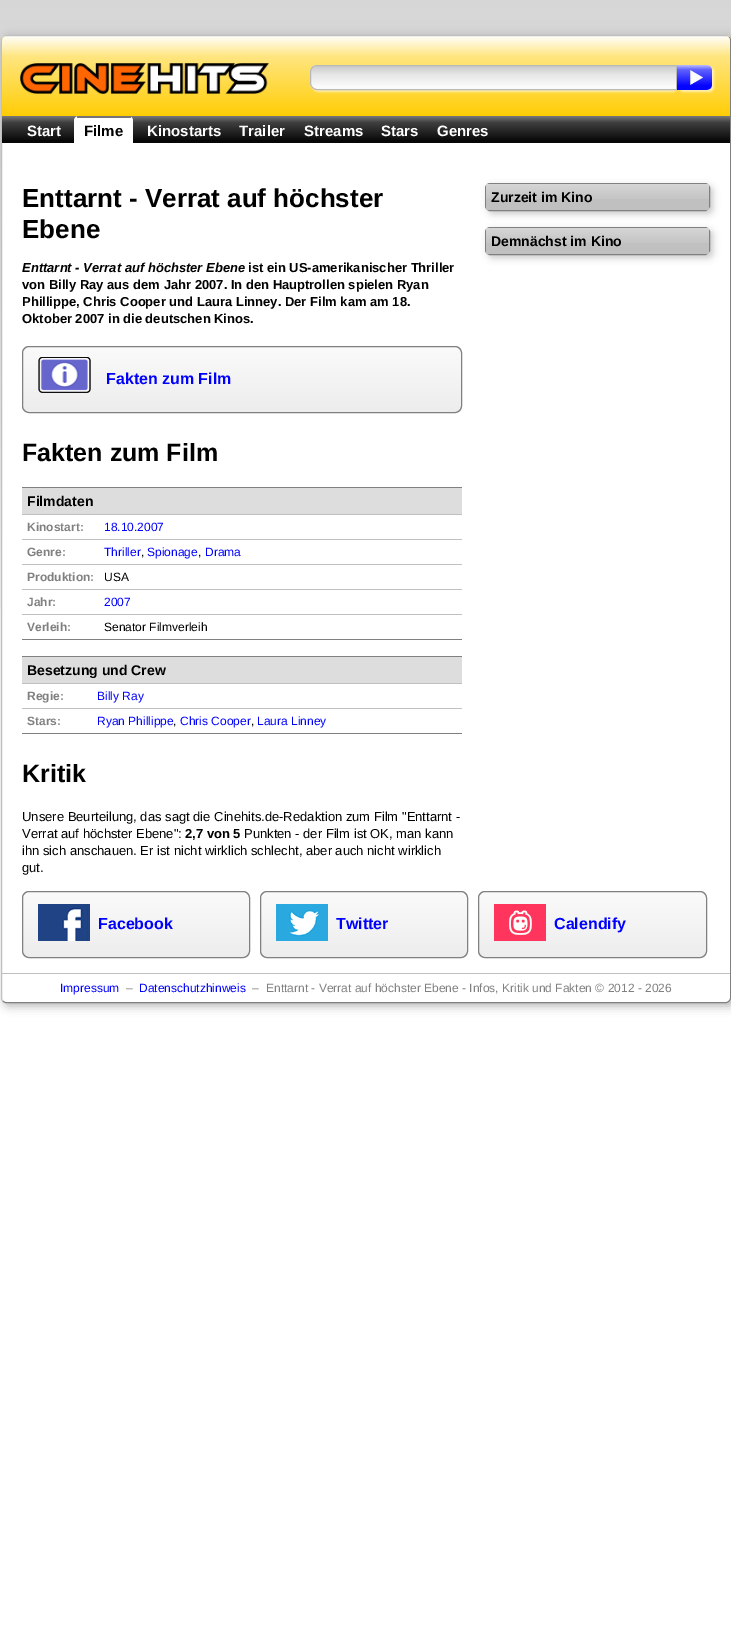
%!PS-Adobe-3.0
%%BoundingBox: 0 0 731 1643
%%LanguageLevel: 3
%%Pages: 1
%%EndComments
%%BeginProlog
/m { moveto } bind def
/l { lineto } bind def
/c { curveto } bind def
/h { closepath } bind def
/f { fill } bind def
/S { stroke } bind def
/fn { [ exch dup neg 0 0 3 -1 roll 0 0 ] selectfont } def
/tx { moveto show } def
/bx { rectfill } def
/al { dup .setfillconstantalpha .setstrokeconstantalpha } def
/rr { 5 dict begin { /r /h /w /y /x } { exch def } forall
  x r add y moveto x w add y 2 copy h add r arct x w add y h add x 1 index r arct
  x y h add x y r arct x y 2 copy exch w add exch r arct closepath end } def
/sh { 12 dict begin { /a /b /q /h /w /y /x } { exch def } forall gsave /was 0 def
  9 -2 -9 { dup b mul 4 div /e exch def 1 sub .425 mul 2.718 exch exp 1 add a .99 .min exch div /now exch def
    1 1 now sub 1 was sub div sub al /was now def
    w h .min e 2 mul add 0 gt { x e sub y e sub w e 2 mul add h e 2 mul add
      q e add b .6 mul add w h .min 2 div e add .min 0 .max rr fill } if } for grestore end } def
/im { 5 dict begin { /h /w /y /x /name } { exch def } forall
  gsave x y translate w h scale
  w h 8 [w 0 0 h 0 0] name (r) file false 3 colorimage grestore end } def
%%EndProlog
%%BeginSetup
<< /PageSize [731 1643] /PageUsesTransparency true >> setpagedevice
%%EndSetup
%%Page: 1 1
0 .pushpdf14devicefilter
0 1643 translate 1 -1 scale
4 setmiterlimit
1 setgray
0 0 731 1643 bx
(image0.raw) 0 0 731 609 im
0 setgray
4 38 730 968 5 5 0.3 sh
1 setgray
1 35 730 968 5 rr f
0.502 setgray
729 37 m 730 37.5 730.5 39 730.5 40 c 730.5 998 l 730.5 999 730 1000.5 729 1001 c 728.5 1002 727 1002.5 726 1002.5 c 6 1002.5 l 5 1002.5 3.5 1002 3 1001 c S
0.753 setgray
3 1001 m 2 1000.5 1.5 999 1.5 998 c 1.5 40 l 1.5 39 2 37.5 3 37 c 3.5 36 5 35.5 6 35.5 c 726 35.5 l 727 35.5 728.5 36 729 37 c S
1 0.8 0.008 setrgbcolor
7 36 m 725 36 l 728 36 730 38 730 41 c 730 116 l 2 116 l 2 41 l 2 38 4 36 7 36 c h f
(image1.raw) 2 36 728 79 im
(image2.raw) 20 63 249 31 im
1 setgray
312 67 367 25 7 1 0.6 sh
(image3.raw) 310 65 366 25 im
0.725 0.725 0.722 setrgbcolor
317 65.5 m 676.5 65.5 l 676.5 89.5 l 317 89.5 l 313.5 89.5 310.5 86.5 310.5 83 c 310.5 72 l 310.5 68.5 313.5 65.5 317 65.5 c h S
1 setgray
679 67 35 25 5 1 0.6 sh
(image4.raw) 677 65 35 25 im
0.024 setgray
2 140 728 3 bx
(image5.raw) 2 116 728 24 im
/LiberationSans-Bold 15 fn
1 setgray
(Start) 27 136 tx
79 116 m 128 116 l 131 116 133 118 133 121 c 133 143 l 74 143 l 74 121 l 74 118 76 116 79 116 c h f
0.459 setgray
77 116 54 2 bx
0 setgray
(Filme) 84 136 tx
1 setgray
(Kinostarts) 147 136 tx
(Trailer) 239 136 tx
(Streams) 304 136 tx
(Stars) 381 136 tx
(Genres) 437 136 tx
/LiberationSans-Bold 26 fn
0 setgray
(Enttarnt - Verrat auf höchster) 22 207 tx
(Ebene) 22 238 tx
/LiberationSans-BoldItalic 13 fn
(Enttarnt - Verrat auf höchster Ebene) 22 272 tx
/LiberationSans-Bold 13 fn
(ist ein US-amerikanischer Thriller) 248 272 tx
(von Billy Ray aus dem Jahr 2007. In den Hauptrollen spielen Ryan) 22 289 tx
(Phillippe, Chris Cooper und Laura Linney. Der Film kam am 18.) 22 306 tx
(Oktober 2007 in die deutschen Kinos.) 22 323 tx
0.867 setgray
22 346 440 67 7 rr f
(image6.raw) 22 347 440 66 im
0.502 setgray
22.5 346.5 439 66 6.5 rr S
(image7.raw) 38 357 53 36 im
/LiberationSans-Bold 16 fn
0 0 1 setrgbcolor
(Fakten zum Film) 106 384 tx
/LiberationSans-Bold 25 fn
0 setgray
(Fakten zum Film) 22 461 tx
0.502 setgray
22 487 440 1 bx
22 639 440 1 bx
0.867 setgray
22 488 440 26 bx
/LiberationSans-Bold 14 fn
0 setgray
(Filmdaten) 27 506 tx
0.753 setgray
22 514 440 1 bx
/LiberationSans-Bold 12 fn
0.502 setgray
(Kinostart:) 27 531 tx
/LiberationSans-Regular 12 fn
0 0 1 setrgbcolor
(18.10.2007) 104 531 tx
0.753 setgray
22 539 440 1 bx
/LiberationSans-Bold 12 fn
0.502 setgray
(Genre:) 27 556 tx
/LiberationSans-Regular 12 fn
0 0 1 setrgbcolor
(Thriller) 104 556 tx
0 setgray
(,) 141 556 tx
0 0 1 setrgbcolor
(Spionage) 147 556 tx
0 setgray
(,) 198 556 tx
0 0 1 setrgbcolor
(Drama) 205 556 tx
0.753 setgray
22 564 440 1 bx
/LiberationSans-Bold 12 fn
0.502 setgray
(Produktion:) 27 581 tx
/LiberationSans-Regular 12 fn
0 setgray
(USA) 104 581 tx
0.753 setgray
22 589 440 1 bx
/LiberationSans-Bold 12 fn
0.502 setgray
(Jahr:) 27 606 tx
/LiberationSans-Regular 12 fn
0 0 1 setrgbcolor
(2007) 104 606 tx
0.753 setgray
22 614 440 1 bx
/LiberationSans-Bold 12 fn
0.502 setgray
(Verleih:) 27 631 tx
/LiberationSans-Regular 12 fn
0 setgray
(Senator Filmverleih) 104 631 tx
0.502 setgray
22 656 440 1 bx
22 733 440 1 bx
0.867 setgray
22 657 440 26 bx
/LiberationSans-Bold 14 fn
0 setgray
(Besetzung und Crew) 27 675 tx
0.753 setgray
22 683 440 1 bx
/LiberationSans-Bold 12 fn
0.502 setgray
(Regie:) 27 700 tx
/LiberationSans-Regular 12 fn
0 0 1 setrgbcolor
(Billy Ray) 97 700 tx
0.753 setgray
22 708 440 1 bx
/LiberationSans-Bold 12 fn
0.502 setgray
(Stars:) 27 725 tx
/LiberationSans-Regular 12 fn
0 0 1 setrgbcolor
(Ryan Phillippe) 97 725 tx
0 setgray
(,) 173 725 tx
0 0 1 setrgbcolor
(Chris Cooper) 180 725 tx
0 setgray
(,) 251 725 tx
0 0 1 setrgbcolor
(Laura Linney) 257 725 tx
/LiberationSans-Bold 25 fn
0 setgray
(Kritik) 22 782 tx
/LiberationSans-Regular 13 fn
(Unsere Beurteilung, das sagt die Cinehits.de-Redaktion zum Film "Enttarnt -) 22 821 tx
(Verrat auf höchster Ebene":) 22 838 tx
/LiberationSans-Bold 13 fn
(2,7 von 5) 185 838 tx
/LiberationSans-Regular 13 fn
(Punkten - der Film ist OK, man kann) 244 838 tx
(ihn sich anschauen. Er ist nicht wirklich schlecht, aber auch nicht wirklich) 22 855 tx
(gut.) 22 872 tx
488 186 225 28 5 3.5 0.2 sh
(image8.raw) 485 185 225 26 im
0.502 setgray
485.5 183.5 224 27 4.5 rr S
0.753 setgray
486 199 223 11 bx
(image9.raw) 486 184 223 15 im
/LiberationSans-Bold 14 fn
0 setgray
(Zurzeit im Kino) 491 202 tx
488 230 225 28 5 3.5 0.2 sh
(image8.raw) 485 229 225 26 im
0.502 setgray
485.5 227.5 224 27 4.5 rr S
0.753 setgray
486 243 223 11 bx
(image9.raw) 486 228 223 15 im
0 setgray
(Demnächst im Kino) 491 246 tx
0.867 setgray
22 891 228 67 7 rr f
(image10.raw) 22 892 228 66 im
0.502 setgray
22.5 891.5 227 66 6.5 rr S
(image11.raw) 38 904 52 37 im
/LiberationSans-Bold 16 fn
0 0 1 setrgbcolor
(Facebook) 98 929 tx
0.867 setgray
260 891 208 67 7 rr f
(image12.raw) 260 892 208 66 im
0.502 setgray
260.5 891.5 207 66 6.5 rr S
(image13.raw) 276 904 52 37 im
0 0 1 setrgbcolor
(Twitter) 336 929 tx
0.867 setgray
478 891 229 67 7 rr f
(image14.raw) 478 892 229 66 im
0.502 setgray
478.5 891.5 228 66 6.5 rr S
(image15.raw) 494 904 52 37 im
0 0 1 setrgbcolor
(Calendify) 554 929 tx
0.753 setgray
2 973 728 1 bx
/LiberationSans-Regular 12 fn
0 0 1 setrgbcolor
(Impressum) 60 992 tx
0.502 setgray
(–) 126 992 tx
0 0 1 setrgbcolor
(Datenschutzhinweis) 139 992 tx
0.502 setgray
(–) 252 992 tx
(Enttarnt - Verrat auf höchster Ebene - Infos, Kritik und Fakten © 2012 - 2026) 266 992 tx
.poppdf14devicefilter showpage
%%EOF
